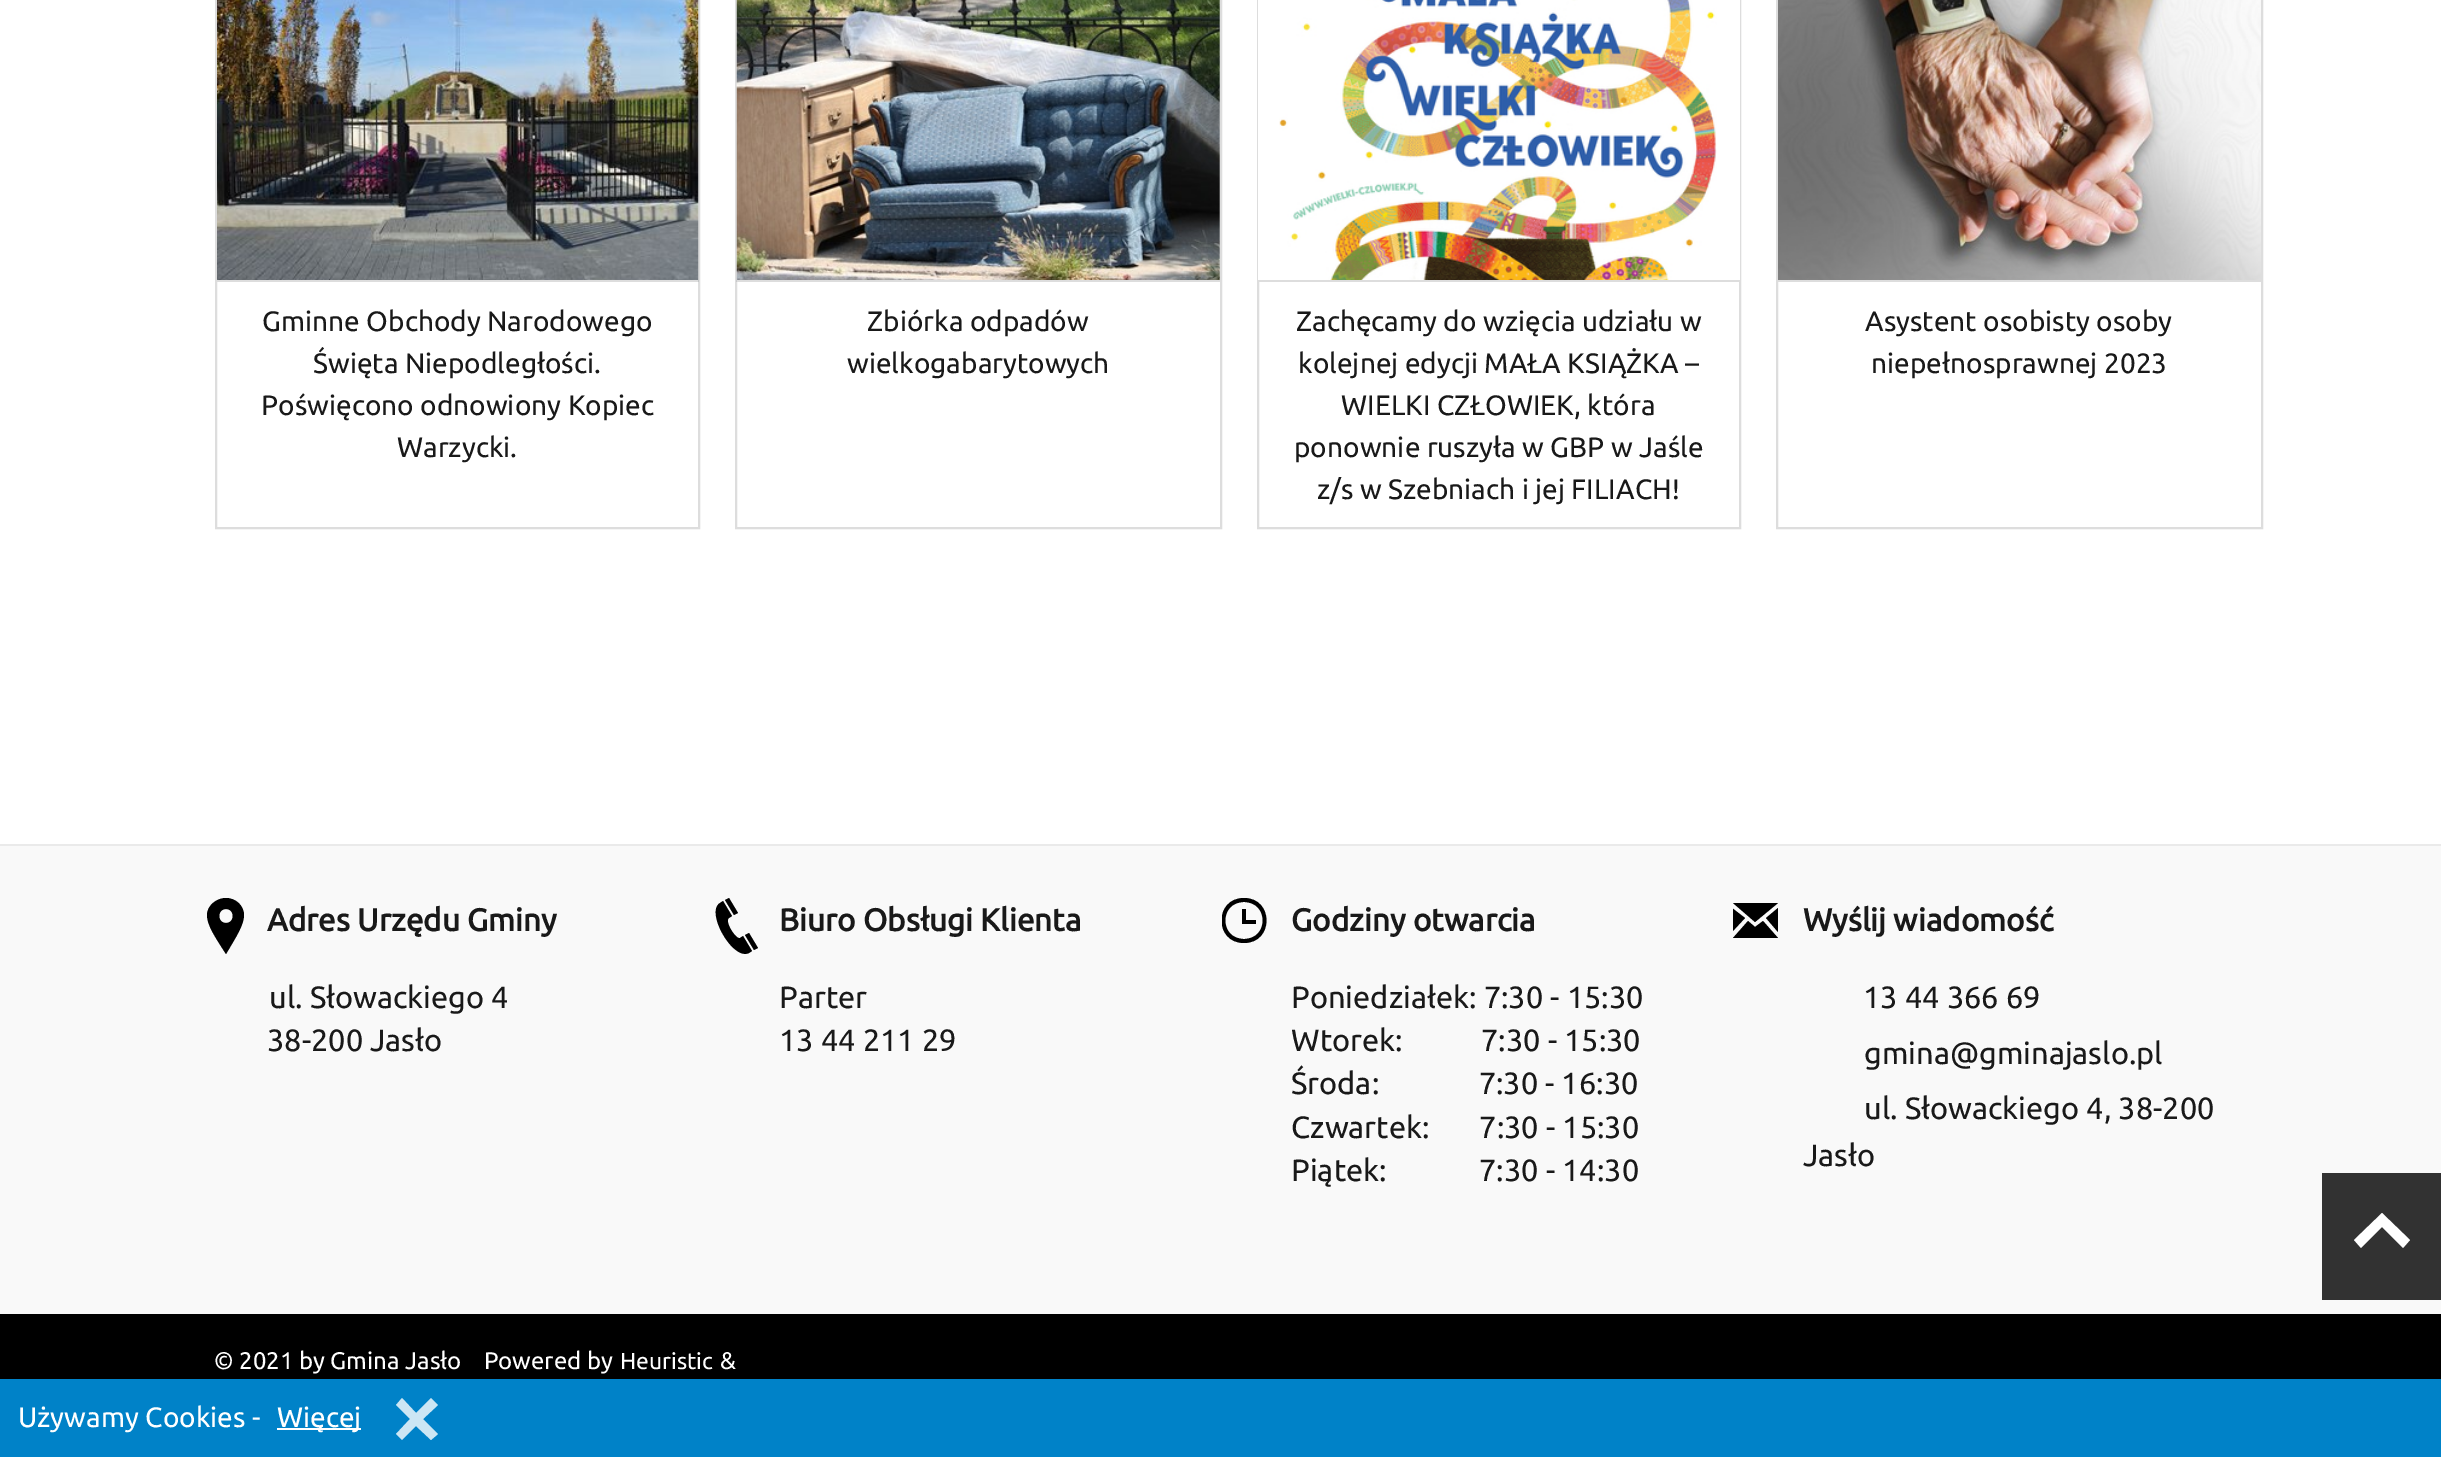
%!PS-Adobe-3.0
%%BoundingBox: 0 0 2441 1457
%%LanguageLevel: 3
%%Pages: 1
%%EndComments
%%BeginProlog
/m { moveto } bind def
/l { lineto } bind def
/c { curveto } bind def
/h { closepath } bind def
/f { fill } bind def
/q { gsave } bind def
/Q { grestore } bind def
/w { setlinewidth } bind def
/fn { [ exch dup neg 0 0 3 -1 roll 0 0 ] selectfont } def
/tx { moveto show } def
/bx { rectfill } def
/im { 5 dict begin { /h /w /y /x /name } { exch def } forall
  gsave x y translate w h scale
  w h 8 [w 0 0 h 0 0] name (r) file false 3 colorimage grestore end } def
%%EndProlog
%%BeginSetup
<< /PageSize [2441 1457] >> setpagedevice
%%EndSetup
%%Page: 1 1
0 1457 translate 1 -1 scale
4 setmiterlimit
1 setgray
0 0 2441 1457 bx
0.867 setgray
2 w
216 -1 483 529 rectstroke
(image0.raw) 217 0 482 282 im
217 280 481 2 bx
/Ubuntu-Regular 28 fn
0.098 setgray
(Gminne Obchody Narodowego) 262 331 tx
(Święta Niepodległości.) 313 373 tx
(Poświęcono odnowiony Kopiec) 261 415 tx
(Warzycki.) 397 457 tx
0.867 setgray
736 -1 485 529 rectstroke
(image1.raw) 736 0 484 282 im
737 280 483 2 bx
0.098 setgray
(Zbiórka odpadów) 867 331 tx
(wielkogabarytowych) 847 373 tx
0.867 setgray
1258 -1 482 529 rectstroke
1 setgray
1258 0 482 280 bx
(image2.raw) 1279 0 438 280 im
0.867 setgray
1258 280 482 2 bx
0.098 setgray
(Zachęcamy do wzięcia udziału w) 1296 331 tx
(kolejnej edycji MAŁA KSIĄŻKA –) 1298 373 tx
(WIELKI CZŁOWIEK, która) 1341 415 tx
(ponownie ruszyła w GBP w Jaśle) 1294 457 tx
(z/s w Szebniach i jej FILIACH!) 1317 499 tx
0.867 setgray
1777 -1 485 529 rectstroke
(image3.raw) 1778 0 483 280 im
1778 280 483 2 bx
0.098 setgray
(Asystent osobisty osoby) 1865 331 tx
(niepełnosprawnej 2023) 1871 373 tx
0.976 setgray
0 846 2441 468 bx
0.918 setgray
0 844 2441 2 bx
0 setgray
226 898 m 216 898 207 906 207 915 c 207 925 215 937 226 954 c 236 937 244 925 244 915 c 244 906 236 898 226 898 c h 226 923 m 217 923 217 909 226 909 c 235 909 235 923 226 923 c h f
/Ubuntu-Bold 31.4 fn
0.098 setgray
(Adres Urzędu Gminy) 267 931 tx
/Ubuntu-Regular 30.75 fn
(ul. Słowackiego 4) 269 1008 tx
(38-200 Jasło) 267 1051 tx
0 setgray
752 951 m 749 953 l 733 961 705 912 720 903 c 723 901 l 732 916 l 729 918 l 724 921 736 940 740 938 c 743 936 l h 729 898 m 725 900 l 734 915 l 738 913 l h 749 933 m 745 935 l 754 950 l 758 948 l h f
/Ubuntu-Bold 31.4 fn
0.098 setgray
(Biuro Obsługi Klienta) 779 931 tx
/Ubuntu-Regular 30.75 fn
(Parter) 779 1008 tx
(13 44 211 29) 779 1051 tx
q
1222 898 45 45 rectclip
0 setgray
1244 902 m 1269 902 1269 939 1244 939 c 1219 939 1219 902 1244 902 c h 1244 898 m 1214 898 1214 943 1244 943 c 1274 943 1274 898 1244 898 c h 1246 920 m 1246 909 l 1242 909 l 1242 924 l 1256 924 l 1256 920 l h f
Q
/Ubuntu-Bold 31.4 fn
(Godziny otwarcia) 1291 931 tx
/Ubuntu-Regular 30.75 fn
(Poniedziałek: 7:30 - 15:30) 1291 1008 tx
(Wtorek:           7:30 - 15:30) 1291 1051 tx
(Środa:              7:30 - 16:30) 1291 1094 tx
(Czwartek:       7:30 - 15:30) 1291 1138 tx
(Piątek:             7:30 - 14:30) 1291 1181 tx
q
1733 898 45 45 rectclip
0 setgray
1755 922 m 1733 903 l 1778 903 l h 1745 918 m 1732 908 l 1732 932 l h 1766 918 m 1778 932 l 1778 908 l h 1763 921 m 1755 927 l 1748 921 l 1733 938 l 1778 938 l h f
Q
/Ubuntu-Bold 31.4 fn
(Wyślij wiadomość) 1803 931 tx
/Ubuntu-Regular 30.75 fn
(13 44 366 69) 1863 1008 tx
(gmina@gminajaslo.pl) 1864 1064 tx
(ul. Słowackiego 4, 38-200) 1864 1119 tx
(Jasło) 1803 1166 tx
0.196 setgray
2322 1173 119 127 bx
1 setgray
2361 1248 m 2354 1240 l 2382 1213 l 2410 1240 l 2403 1248 l 2382 1227 l h f
0 setgray
0 1314 2441 65 bx
/Ubuntu-Regular 24 fn
1 setgray
(© 2021 by Gmina Jasło    Powered by) 214 1369 tx
/Ubuntu-Regular 23 fn
(Heuristic) 620 1369 tx
/Ubuntu-Regular 24 fn
(&) 720 1369 tx
0 0.51 0.784 setrgbcolor
0 1379 2441 78 bx
/Ubuntu-Regular 28 fn
1 setgray
(Używamy Cookies -) 18 1427 tx
277 1428 84 2 bx
(Więcej) 277 1427 tx
0.8 0.902 0.957 setrgbcolor
438 1434 m 423 1419 l 438 1405 l 431 1398 l 416 1413 l 402 1398 l 396 1405 l 410 1419 l 396 1434 l 402 1440 l 416 1426 l 431 1440 l h eofill
showpage
%%EOF
